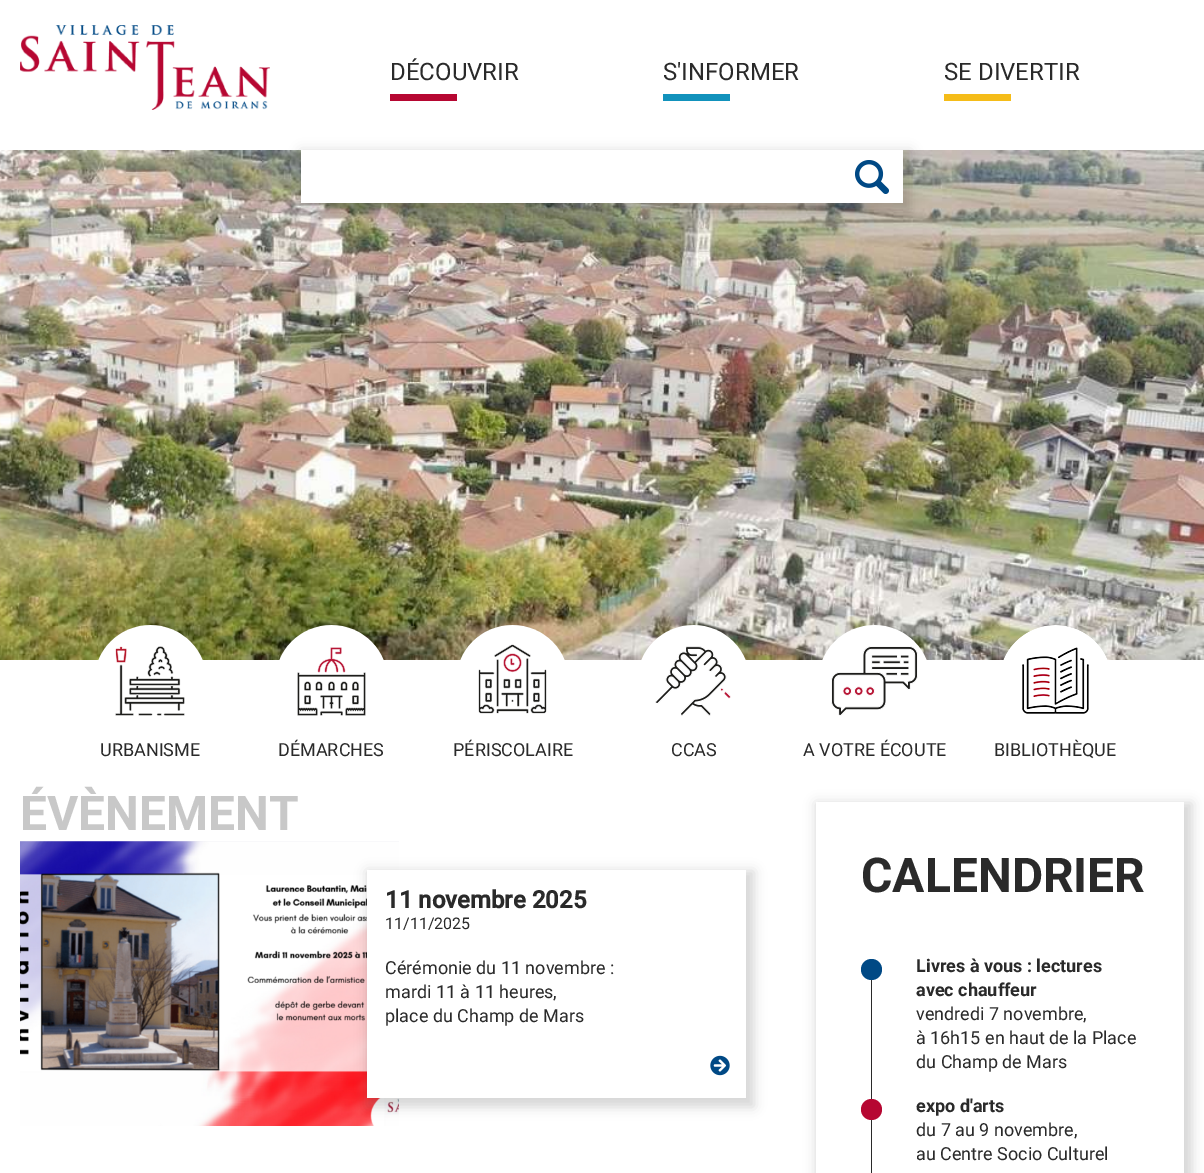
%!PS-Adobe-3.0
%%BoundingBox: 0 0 1204 1173
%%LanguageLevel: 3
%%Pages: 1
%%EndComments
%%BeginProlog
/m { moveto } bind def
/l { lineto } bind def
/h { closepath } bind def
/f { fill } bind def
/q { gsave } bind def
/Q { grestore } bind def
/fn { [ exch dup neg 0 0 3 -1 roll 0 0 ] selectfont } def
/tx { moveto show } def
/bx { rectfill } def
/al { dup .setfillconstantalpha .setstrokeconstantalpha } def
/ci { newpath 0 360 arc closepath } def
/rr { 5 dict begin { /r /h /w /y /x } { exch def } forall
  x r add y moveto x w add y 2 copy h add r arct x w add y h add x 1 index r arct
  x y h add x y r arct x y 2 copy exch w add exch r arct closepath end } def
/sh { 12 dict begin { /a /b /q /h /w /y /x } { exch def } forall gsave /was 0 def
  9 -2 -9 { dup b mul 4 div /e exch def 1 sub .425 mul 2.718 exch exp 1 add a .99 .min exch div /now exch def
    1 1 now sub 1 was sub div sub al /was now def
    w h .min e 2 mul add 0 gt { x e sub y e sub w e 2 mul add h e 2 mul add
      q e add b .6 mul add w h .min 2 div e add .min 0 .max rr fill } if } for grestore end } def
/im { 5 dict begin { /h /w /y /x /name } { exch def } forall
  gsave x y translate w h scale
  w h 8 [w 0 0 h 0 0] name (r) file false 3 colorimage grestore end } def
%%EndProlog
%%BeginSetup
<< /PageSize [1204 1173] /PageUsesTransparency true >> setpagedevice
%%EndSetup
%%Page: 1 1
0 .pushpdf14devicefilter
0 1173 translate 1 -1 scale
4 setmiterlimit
1 setgray
0 0 1204 1173 bx
(image0.raw) 20 25 250 85 im
/Roboto-Regular 24 fn
0.165 setgray
(DÉCOUVRIR) 390 80 tx
0.714 0.027 0.196 setrgbcolor
390 94 67 7 bx
0.165 setgray
(S'INFORMER) 663 80 tx
0.071 0.573 0.737 setrgbcolor
663 94 67 7 bx
0.165 setgray
(SE DIVERTIR) 944 80 tx
0.961 0.737 0.094 setrgbcolor
944 94 67 7 bx
(image2.raw) 0 150 1204 510 im
0 setgray
301 151 610 61 0 6 0.16 sh
1 setgray
301 150 602 53 bx
(image1.raw) 855 160 34 34 im
(image3.raw) 98 625 105 91 im
/Roboto-Regular 18 fn
0.165 setgray
(URBANISME) 100 756 tx
(image4.raw) 279 625 105 91 im
(DÉMARCHES) 278 756 tx
(image5.raw) 460 625 105 89 im
(PÉRISCOLAIRE) 453 756 tx
(image6.raw) 641 625 105 91 im
(CCAS) 671 756 tx
(image7.raw) 822 625 105 91 im
(A VOTRE ÉCOUTE) 803 756 tx
(image8.raw) 1003 625 105 89 im
(BIBLIOTHÈQUE) 994 756 tx
/Roboto-Bold 48 fn
0.784 setgray
(ÉVÈNEMENT) 20 830 tx
(image9.raw) 20 841 379 285 im
0 setgray
367 871 387 236 0 6 0.16 sh
1 setgray
367 870 379 228 bx
/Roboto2-Bold 24 fn
0.165 setgray
(11 novembre 2025) 385 908 tx
/Roboto-Regular 16 fn
(11/11/2025) 385 929 tx
/Roboto-Regular 18 fn
(Cérémonie du 11 novembre :) 385 974 tx
(mardi 11 à 11 heures,) 385 998 tx
(place du Champ de Mars) 385 1022 tx
(image10.raw) 710 1055 20 21 im
q
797 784 m 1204 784 l 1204 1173 l 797 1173 l h 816 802 m 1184 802 l 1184 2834 l 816 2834 l h eoclip newpath
0 setgray
816 803 376 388 0 6 0.16 sh
Q
/Roboto-Bold 48 fn
(CALENDRIER) 861 892 tx
871 979 1 121 bx
0 0.286 0.522 setrgbcolor
871.5 969.5 10.5 ci f
/Roboto-Bold 18 fn
0.165 setgray
(Livres à vous : lectures) 916 972 tx
(avec chauffeur) 916 996 tx
/Roboto-Regular 18 fn
(vendredi 7 novembre,) 916 1020 tx
(à 16h15 en haut de la Place) 916 1044 tx
(du Champ de Mars) 916 1068 tx
871 1119 1 54 bx
0.714 0.027 0.196 setrgbcolor
871.5 1109.5 10.5 ci f
/Roboto-Bold 18 fn
0.165 setgray
(expo d'arts) 916 1112 tx
/Roboto-Regular 18 fn
(du 7 au 9 novembre,) 916 1136 tx
(au Centre Socio Culturel) 916 1160 tx
.poppdf14devicefilter showpage
%%EOF
